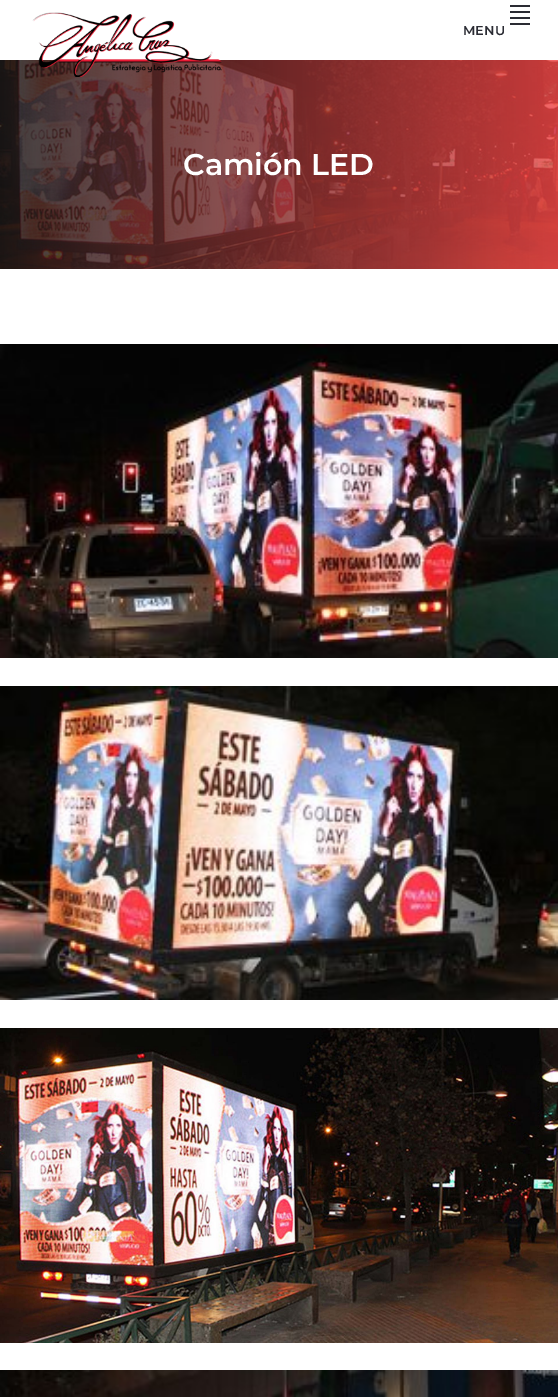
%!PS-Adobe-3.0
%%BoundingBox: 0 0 558 1397
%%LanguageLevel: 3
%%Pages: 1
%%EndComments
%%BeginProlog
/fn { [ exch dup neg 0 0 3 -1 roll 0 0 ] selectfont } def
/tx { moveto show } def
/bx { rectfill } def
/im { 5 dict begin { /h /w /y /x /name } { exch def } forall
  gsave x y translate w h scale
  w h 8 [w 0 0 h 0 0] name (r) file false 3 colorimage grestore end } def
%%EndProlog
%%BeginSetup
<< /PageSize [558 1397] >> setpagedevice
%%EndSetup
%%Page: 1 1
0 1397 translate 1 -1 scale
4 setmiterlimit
1 setgray
0 0 558 1397 bx
(image1.raw) 0 60 558 209 im
(image0.raw) 32 12 190 65 im
0.165 0.169 0.2 setrgbcolor
510 23 20 2 bx
510 17 20 2 bx
510 11 20 2 bx
510 5 20 2 bx
/Montserrat-SemiBold 13 fn
(MENU) 463 35 tx
/Montserrat-SemiBold 30 fn
1 setgray
(Camión LED) 183 175 tx
(image2.raw) 0 344 558 314 im
(image3.raw) 0 686 558 314 im
(image4.raw) 0 1028 558 315 im
(image5.raw) 0 1370 558 27 im
showpage
%%EOF
